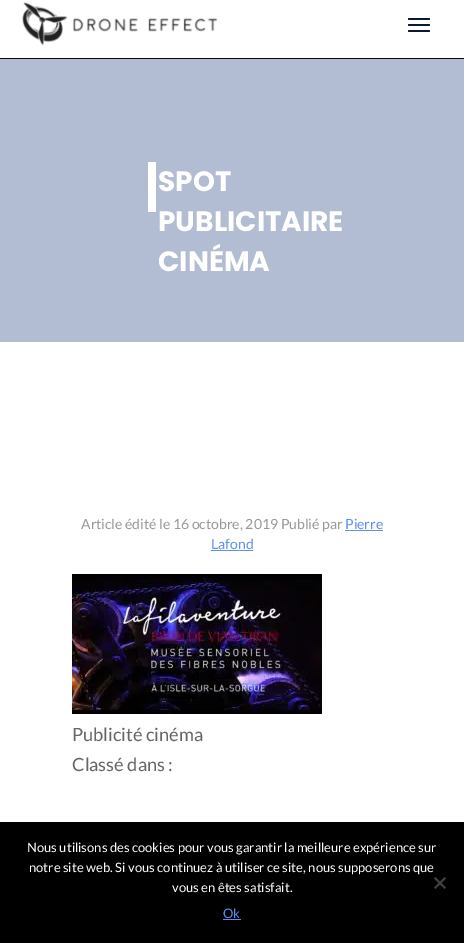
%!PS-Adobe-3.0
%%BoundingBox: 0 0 464 943
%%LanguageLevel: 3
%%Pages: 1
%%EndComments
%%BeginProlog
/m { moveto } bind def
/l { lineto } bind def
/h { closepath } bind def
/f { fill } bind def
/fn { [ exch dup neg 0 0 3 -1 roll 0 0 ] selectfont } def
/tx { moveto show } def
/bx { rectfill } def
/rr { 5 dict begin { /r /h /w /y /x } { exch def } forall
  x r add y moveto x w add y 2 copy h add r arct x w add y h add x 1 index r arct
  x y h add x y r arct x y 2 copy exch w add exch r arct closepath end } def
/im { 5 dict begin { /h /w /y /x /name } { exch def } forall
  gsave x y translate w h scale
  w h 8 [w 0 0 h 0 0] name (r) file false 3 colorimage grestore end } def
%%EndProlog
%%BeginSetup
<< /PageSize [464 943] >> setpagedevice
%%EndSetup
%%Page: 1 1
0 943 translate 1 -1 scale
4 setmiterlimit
1 setgray
0 0 464 943 bx
0.031 setgray
0 58 464 1 bx
(image0.raw) 22 2 196 44 im
0.051 0.098 0.196 setrgbcolor
408 18 22 2 1 rr f
408 24 22 2 1 rr f
408 30 22 2 1 rr f
0.698 0.741 0.827 setrgbcolor
0 59 464 283 bx
1 setgray
148 162 8 50 bx
/Poppins-Bold 28 fn
(SPOT) 158 191 tx
(PUBLICITAIRE) 158 231 tx
(CINÉMA) 158 271 tx
/Lato-Regular 14 fn
0.6 setgray
(Article édité le 16 octobre, 2019 Publié par) 81 529 tx
0.369 0.565 0.937 setrgbcolor
(Pierre) 345 529 tx
345 530 38 1 bx
(Lafond) 211 549 tx
211 550 42 1 bx
(image1.raw) 72 574 250 140 im
/Lato-Regular 18.25 fn
0.4 setgray
(Publicité cinéma) 72 741 tx
(Classé dans :) 72 771 tx
0 setgray
0 822 464 121 bx
/Lato-Regular 13 fn
1 setgray
(Nous utilisons des cookies pour vous garantir la meilleure expérience sur) 27 852 tx
(notre site web. Si vous continuez à utiliser ce site, nous supposerons que) 29 872 tx
(vous en êtes satisfait.) 172 892 tx
0.251 setgray
444.5 877 m 446 878.5 l 435.5 889 l 434 887.5 l h f
434 878.5 m 435.5 877 l 446 887.5 l 444.5 889 l h f
0.369 0.565 0.937 setrgbcolor
(Ok) 223 918 tx
223 919 18 1 bx
showpage
%%EOF
